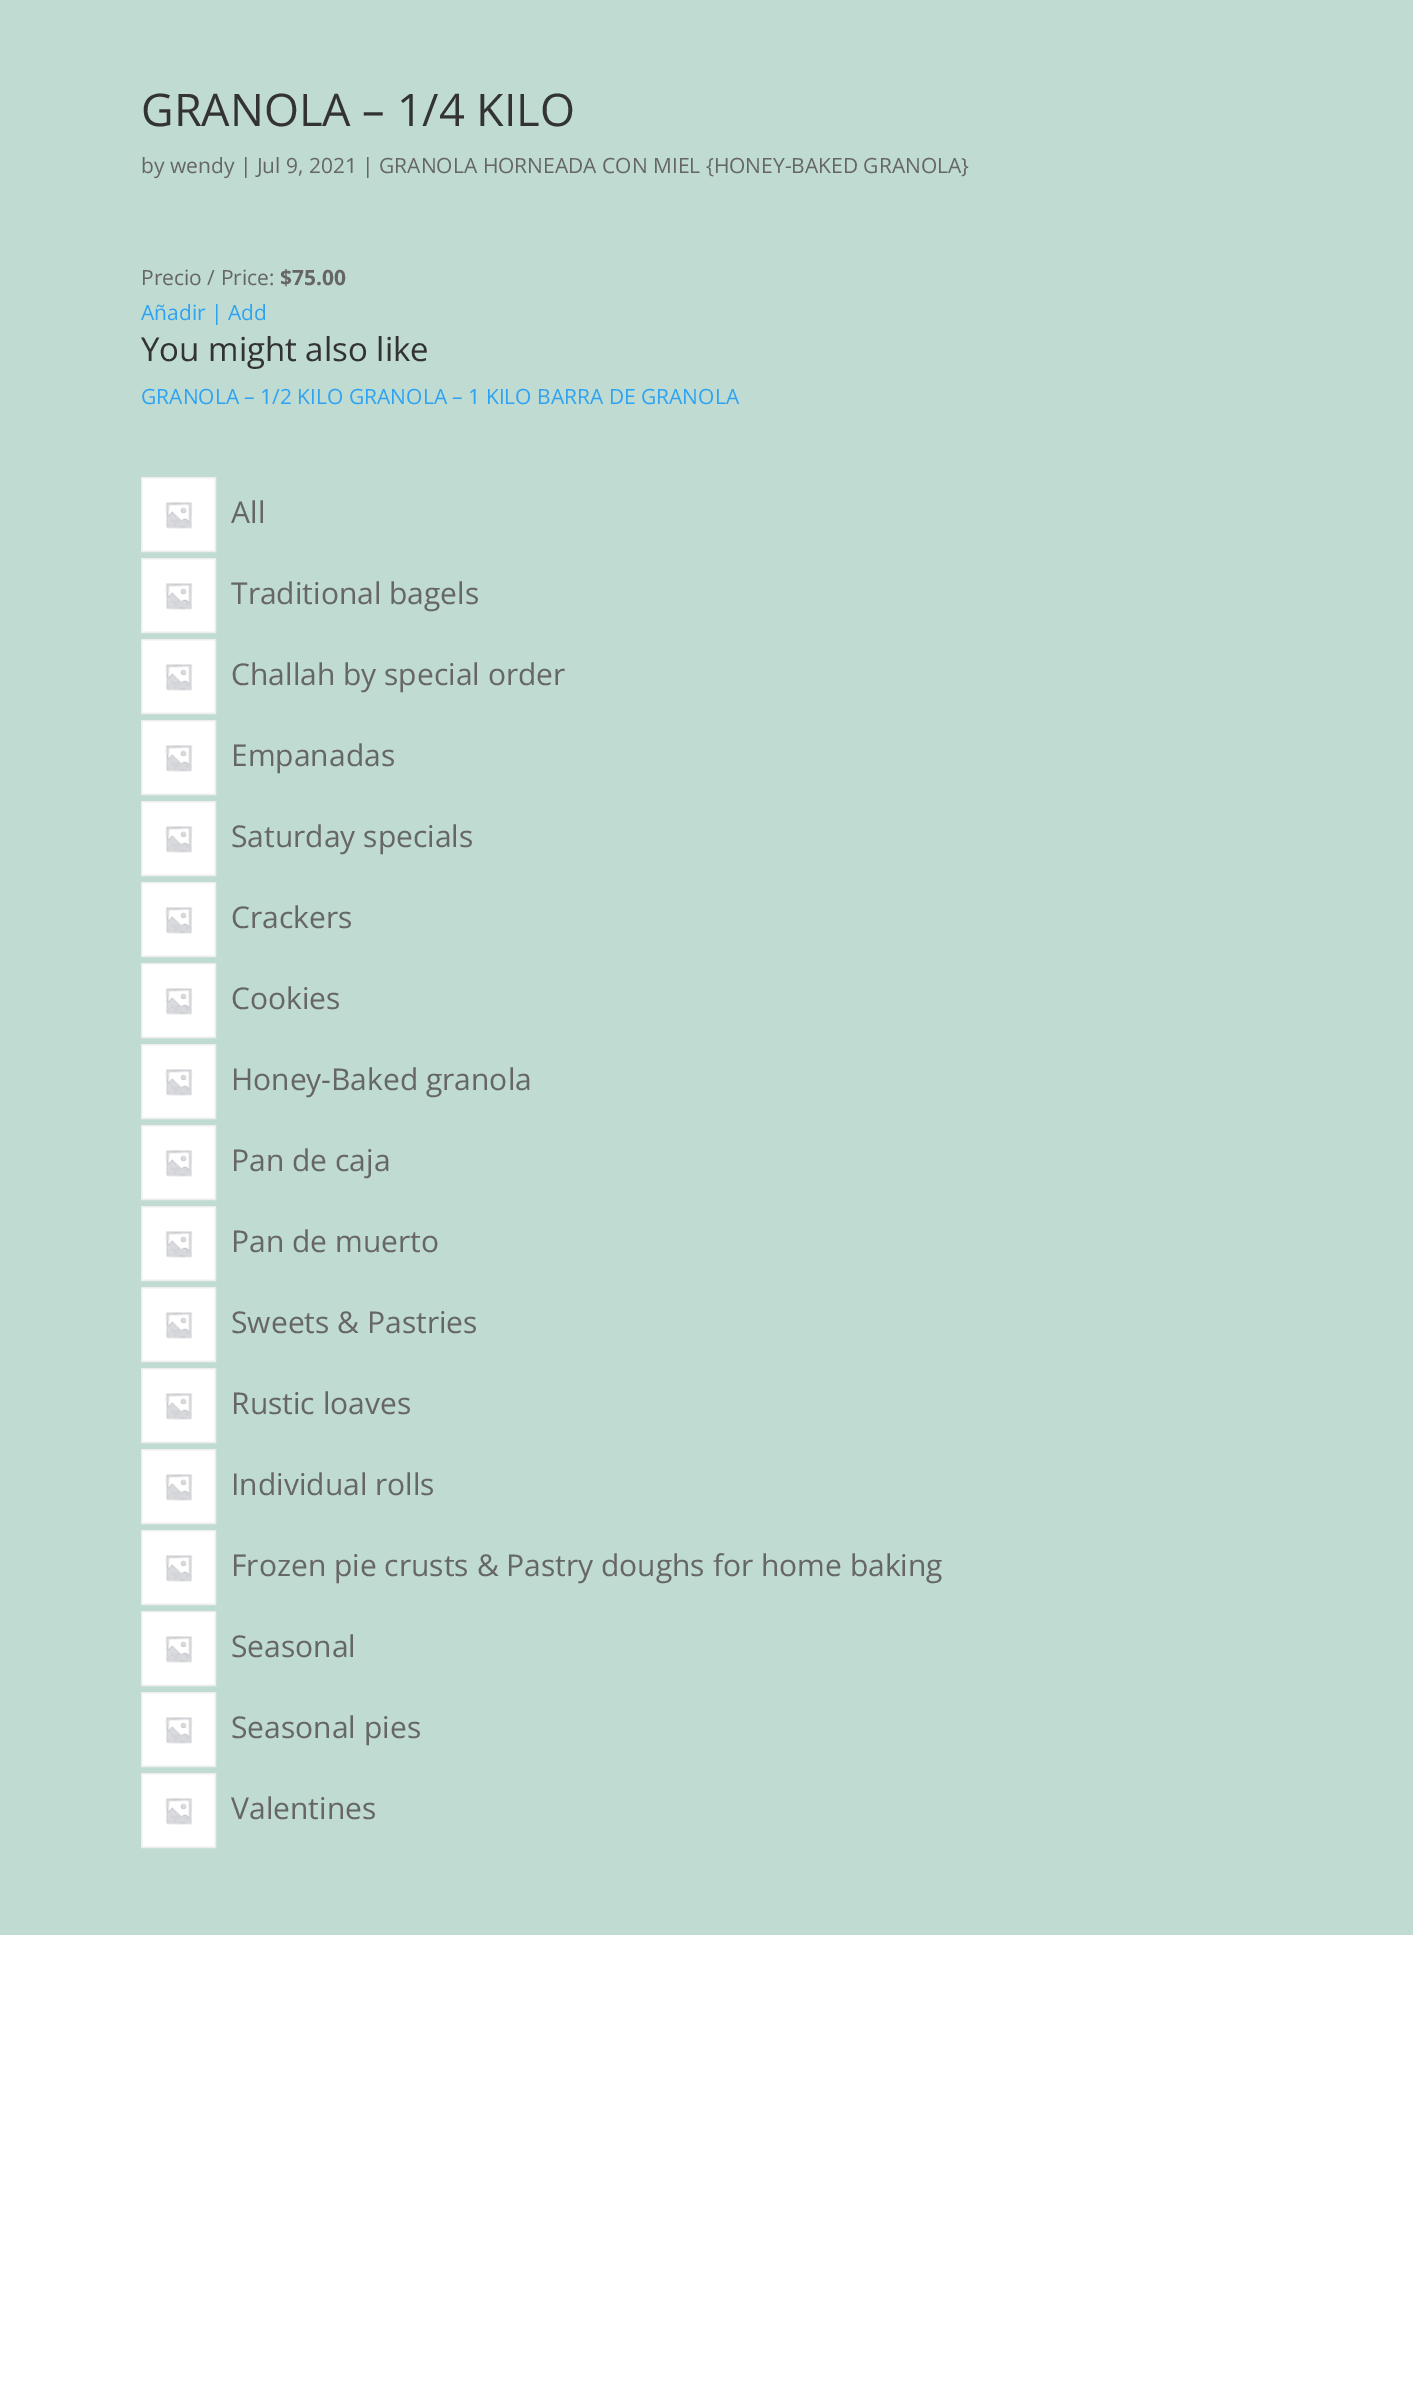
%!PS-Adobe-3.0
%%BoundingBox: 0 0 1413 2383
%%LanguageLevel: 3
%%Pages: 1
%%EndComments
%%BeginProlog
/w { setlinewidth } bind def
/fn { [ exch dup neg 0 0 3 -1 roll 0 0 ] selectfont } def
/tx { moveto show } def
/bx { rectfill } def
/im { 5 dict begin { /h /w /y /x /name } { exch def } forall
  gsave x y translate w h scale
  w h 8 [w 0 0 h 0 0] name (r) file false 3 colorimage grestore end } def
%%EndProlog
%%BeginSetup
<< /PageSize [1413 2383] >> setpagedevice
%%EndSetup
%%Page: 1 1
0 2383 translate 1 -1 scale
4 setmiterlimit
1 setgray
0 0 1413 2383 bx
0.749 0.859 0.824 setrgbcolor
0 0 1413 1935 bx
/OpenSans-Regular 45 fn
0.2 setgray
(GRANOLA – 1/4 KILO) 141 126 tx
/OpenSans-Regular 21 fn
0.4 setgray
(by wendy | Jul 9, 2021 | GRANOLA HORNEADA CON MIEL {HONEY-BAKED GRANOLA}) 141 173 tx
(Precio / Price:) 141 285 tx
/OpenSans-Bold 21 fn
($75.00) 280 285 tx
/OpenSans-Regular 21 fn
0.18 0.639 0.949 setrgbcolor
(Añadir | Add) 141 320 tx
/OpenSans-Regular 33 fn
0.2 setgray
(You might also like) 141 361 tx
/OpenSans-Regular 21 fn
0.18 0.639 0.949 setrgbcolor
(GRANOLA – 1/2 KILO GRANOLA – 1 KILO BARRA DE GRANOLA) 141 404 tx
0.933 setgray
2 w
142 478 73 73 rectstroke
(image0.raw) 142 478 73 73 im
/OpenSans-Regular 30 fn
0.4 setgray
(All) 231 523 tx
0.933 setgray
142 559 73 73 rectstroke
(image0.raw) 142 559 73 73 im
0.4 setgray
(Traditional bagels) 231 604 tx
0.933 setgray
142 640 73 73 rectstroke
(image0.raw) 142 640 73 73 im
0.4 setgray
(Challah by special order) 231 685 tx
0.933 setgray
142 721 73 73 rectstroke
(image0.raw) 142 721 73 73 im
0.4 setgray
(Empanadas) 231 766 tx
0.933 setgray
142 802 73 73 rectstroke
(image0.raw) 142 802 73 73 im
0.4 setgray
(Saturday specials) 231 847 tx
0.933 setgray
142 883 73 73 rectstroke
(image0.raw) 142 883 73 73 im
0.4 setgray
(Crackers) 231 928 tx
0.933 setgray
142 964 73 73 rectstroke
(image0.raw) 142 964 73 73 im
0.4 setgray
(Cookies) 231 1009 tx
0.933 setgray
142 1045 73 73 rectstroke
(image0.raw) 142 1045 73 73 im
0.4 setgray
(Honey-Baked granola) 231 1090 tx
0.933 setgray
142 1126 73 73 rectstroke
(image0.raw) 142 1126 73 73 im
0.4 setgray
(Pan de caja) 231 1171 tx
0.933 setgray
142 1207 73 73 rectstroke
(image0.raw) 142 1207 73 73 im
0.4 setgray
(Pan de muerto) 231 1252 tx
0.933 setgray
142 1288 73 73 rectstroke
(image0.raw) 142 1288 73 73 im
0.4 setgray
(Sweets & Pastries) 231 1333 tx
0.933 setgray
142 1369 73 73 rectstroke
(image0.raw) 142 1369 73 73 im
0.4 setgray
(Rustic loaves) 231 1414 tx
0.933 setgray
142 1450 73 73 rectstroke
(image0.raw) 142 1450 73 73 im
0.4 setgray
(Individual rolls) 231 1495 tx
0.933 setgray
142 1531 73 73 rectstroke
(image0.raw) 142 1531 73 73 im
0.4 setgray
(Frozen pie crusts & Pastry doughs for home baking) 231 1576 tx
0.933 setgray
142 1612 73 73 rectstroke
(image0.raw) 142 1612 73 73 im
0.4 setgray
(Seasonal) 231 1657 tx
0.933 setgray
142 1693 73 73 rectstroke
(image0.raw) 142 1693 73 73 im
0.4 setgray
(Seasonal pies) 231 1738 tx
0.933 setgray
142 1774 73 73 rectstroke
(image0.raw) 142 1774 73 73 im
0.4 setgray
(Valentines) 231 1819 tx
showpage
%%EOF
